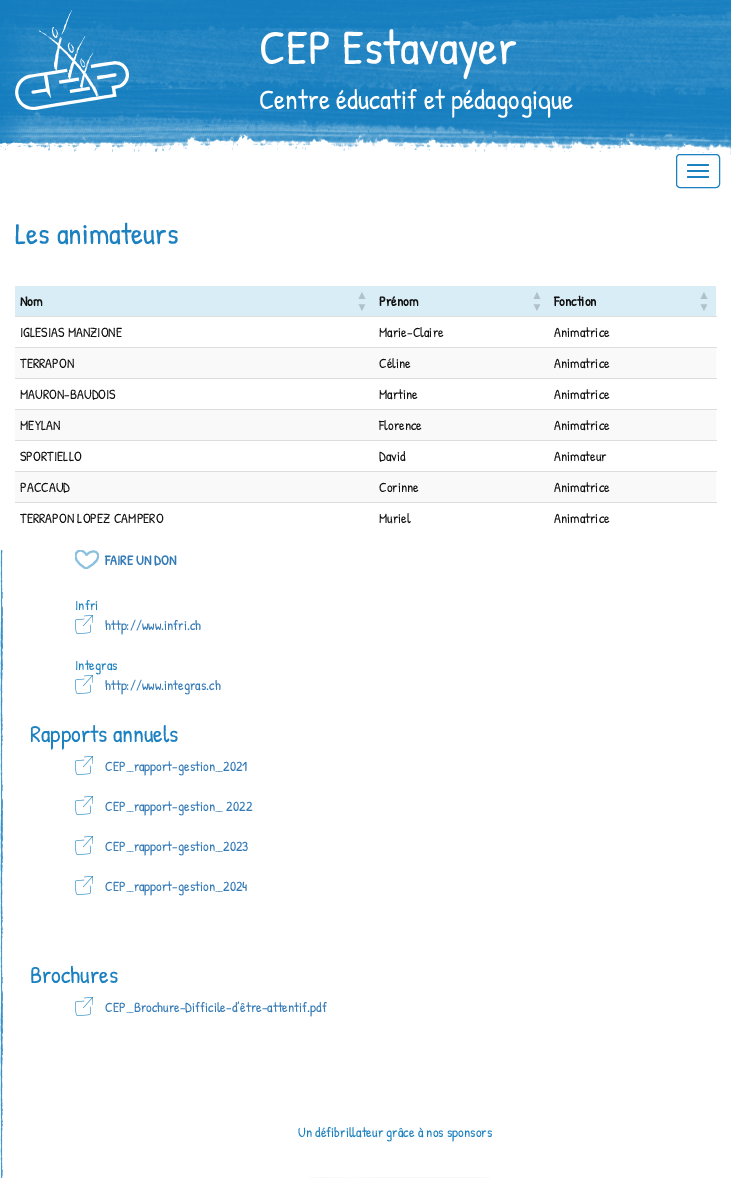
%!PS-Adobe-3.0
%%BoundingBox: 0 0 731 1178
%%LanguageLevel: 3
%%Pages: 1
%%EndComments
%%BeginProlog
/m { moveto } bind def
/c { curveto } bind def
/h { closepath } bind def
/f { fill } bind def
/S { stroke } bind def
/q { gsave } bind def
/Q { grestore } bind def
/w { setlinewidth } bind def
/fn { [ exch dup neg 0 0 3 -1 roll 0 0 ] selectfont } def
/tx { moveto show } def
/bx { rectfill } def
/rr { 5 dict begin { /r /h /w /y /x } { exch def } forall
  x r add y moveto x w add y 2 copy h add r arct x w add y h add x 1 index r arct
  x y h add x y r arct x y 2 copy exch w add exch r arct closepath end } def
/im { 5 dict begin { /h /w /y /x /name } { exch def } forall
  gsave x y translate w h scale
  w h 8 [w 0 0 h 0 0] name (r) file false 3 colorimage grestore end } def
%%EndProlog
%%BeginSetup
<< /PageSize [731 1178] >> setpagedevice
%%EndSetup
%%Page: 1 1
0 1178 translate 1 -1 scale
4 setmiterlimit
1 setgray
0 0 731 1178 bx
(image0.raw) 0 0 731 155 im
(image1.raw) 15 10 114 100 im
/PatrickHand-Regular 49 fn
(CEP Estavayer) 259 64 tx
/PatrickHand-Regular 28 fn
(Centre éducatif et pédagogique) 259 109 tx
0.106 0.506 0.753 setrgbcolor
676.5 154.5 43 33 3.5 rr S
687 164 22 2 1 rr f
687 170 22 2 1 rr f
687 176 22 2 1 rr f
/PatrickHand-Regular 30 fn
(Les animateurs) 15 244 tx
0.851 0.929 0.969 setrgbcolor
15 286 701 30 bx
/PatrickHand-Bold 14 fn
0.067 setgray
(Nom) 20 306 tx
/LiberationSans-Bold 12 fn
0.694 0.757 0.788 setrgbcolor
(▲) 356 299 tx
(▼) 356 311 tx
/PatrickHand-Bold 14 fn
0.067 setgray
(Prénom) 379 306 tx
/LiberationSans-Bold 12 fn
0.694 0.757 0.788 setrgbcolor
(▲) 531 299 tx
(▼) 531 311 tx
/PatrickHand-Bold 14 fn
0.067 setgray
(Fonction) 554 306 tx
/LiberationSans-Bold 12 fn
0.694 0.757 0.788 setrgbcolor
(▲) 698 299 tx
(▼) 698 311 tx
/PatrickHand-Regular 14 fn
0.067 setgray
(IGLESIAS MANZIONE) 20 337 tx
(Marie-Claire) 379 337 tx
0.867 setgray
15 316 702 1 bx
0.067 setgray
(Animatrice) 554 337 tx
0.976 setgray
15 348 701 30 bx
0.067 setgray
(TERRAPON) 20 368 tx
(Céline) 379 368 tx
0.867 setgray
15 347 702 1 bx
0.067 setgray
(Animatrice) 554 368 tx
(MAURON-BAUDOIS) 20 399 tx
(Martine) 379 399 tx
0.867 setgray
15 378 702 1 bx
0.067 setgray
(Animatrice) 554 399 tx
0.976 setgray
15 410 701 30 bx
0.067 setgray
(MEYLAN) 20 430 tx
(Florence) 379 430 tx
0.867 setgray
15 409 702 1 bx
0.067 setgray
(Animatrice) 554 430 tx
(SPORTIELLO) 20 461 tx
(David) 379 461 tx
0.867 setgray
15 440 702 1 bx
0.067 setgray
(Animateur) 554 461 tx
0.976 setgray
15 472 701 30 bx
0.067 setgray
(PACCAUD) 20 492 tx
(Corinne) 379 492 tx
0.867 setgray
15 471 702 1 bx
0.067 setgray
(Animatrice) 554 492 tx
(TERRAPON LOPEZ CAMPERO) 20 523 tx
(Muriel) 379 523 tx
0.867 setgray
15 502 702 1 bx
0.067 setgray
(Animatrice) 554 523 tx
(image2.raw) 0 550 3 628 im
/PatrickHand-Bold 14 fn
0.2 0.478 0.718 setrgbcolor
(FAIRE UN DON) 105 565 tx
q
75 550 24 19 rectclip
0.549 0.753 0.875 setrgbcolor
2 w
1 setlinecap
1 setlinejoin
86.5 555 m 80 543 65.5 557.5 86 568.5 c 108.5 557.5 95 545 86.5 555 c h S
Q
/PatrickHand-Regular 14 fn
0.106 0.506 0.753 setrgbcolor
(Infri) 75 610 tx
(image3.raw) 75 615 18 19 im
0.2 0.478 0.718 setrgbcolor
(http://www.infri.ch) 105 630 tx
0.106 0.506 0.753 setrgbcolor
(Integras) 75 670 tx
(image3.raw) 75 675 18 19 im
0.2 0.478 0.718 setrgbcolor
(http://www.integras.ch) 105 690 tx
/PatrickHand-Regular 24 fn
0.106 0.506 0.753 setrgbcolor
(Rapports annuels) 30 742 tx
(image3.raw) 75 756 18 19 im
/PatrickHand-Regular 14 fn
0.2 0.478 0.718 setrgbcolor
(CEP_rapport-gestion_2021) 105 771 tx
(image3.raw) 75 796 18 19 im
(CEP_rapport-gestion_ 2022) 105 811 tx
(image3.raw) 75 836 18 19 im
(CEP_rapport-gestion_2023) 105 851 tx
(image3.raw) 75 876 18 19 im
(CEP_rapport-gestion_2024) 105 891 tx
/PatrickHand-Regular 24 fn
0.106 0.506 0.753 setrgbcolor
(Brochures) 30 983 tx
(image3.raw) 75 997 18 19 im
/PatrickHand-Regular 14 fn
0.2 0.478 0.718 setrgbcolor
(CEP_Brochure-Difficile-d’être-attentif.pdf) 105 1012 tx
0.106 0.506 0.753 setrgbcolor
(Un défibrillateur grâce à nos sponsors) 298 1137 tx
(image4.raw) 309 1177 181 1 im
showpage
%%EOF
